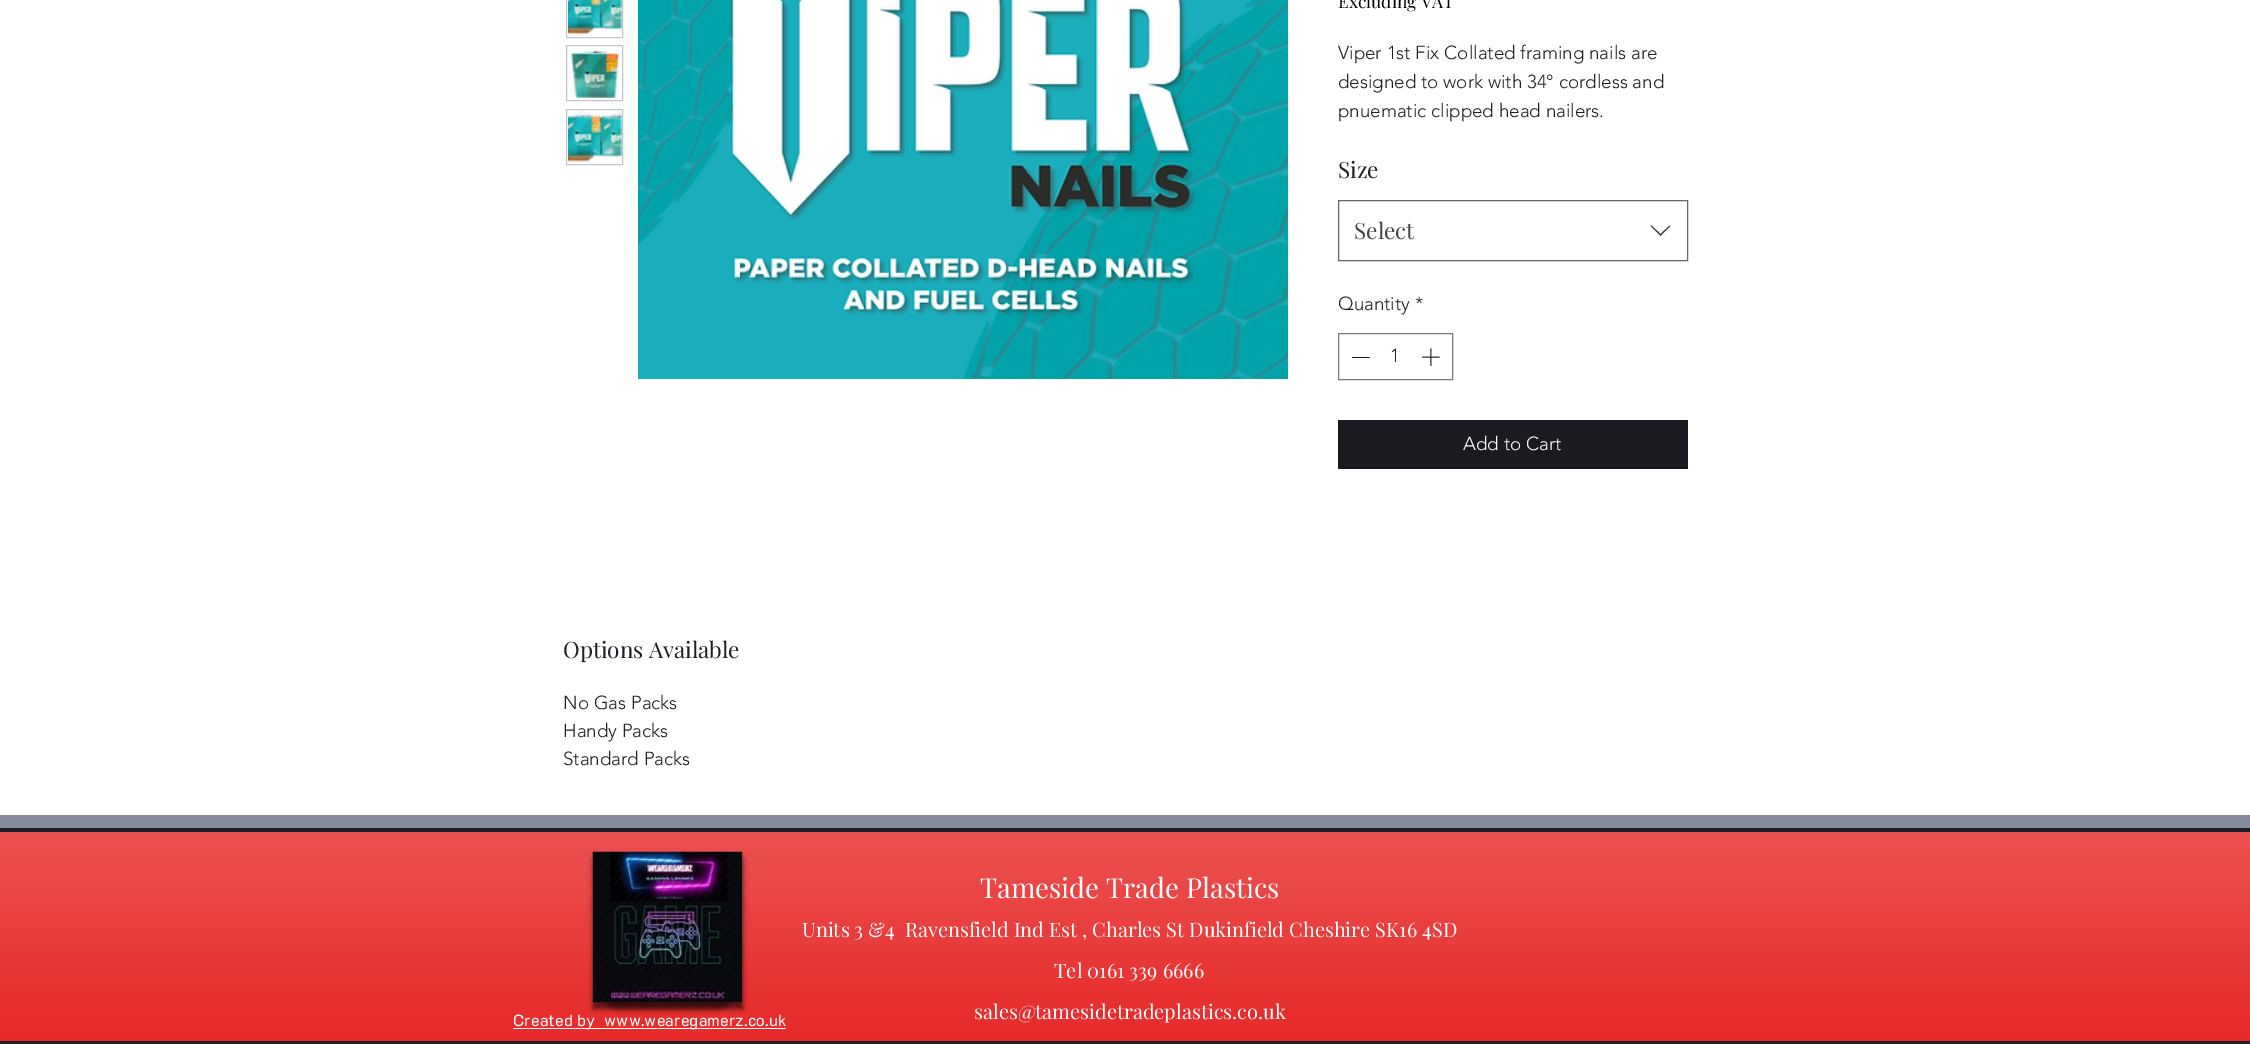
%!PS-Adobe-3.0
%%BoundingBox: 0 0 2250 1044
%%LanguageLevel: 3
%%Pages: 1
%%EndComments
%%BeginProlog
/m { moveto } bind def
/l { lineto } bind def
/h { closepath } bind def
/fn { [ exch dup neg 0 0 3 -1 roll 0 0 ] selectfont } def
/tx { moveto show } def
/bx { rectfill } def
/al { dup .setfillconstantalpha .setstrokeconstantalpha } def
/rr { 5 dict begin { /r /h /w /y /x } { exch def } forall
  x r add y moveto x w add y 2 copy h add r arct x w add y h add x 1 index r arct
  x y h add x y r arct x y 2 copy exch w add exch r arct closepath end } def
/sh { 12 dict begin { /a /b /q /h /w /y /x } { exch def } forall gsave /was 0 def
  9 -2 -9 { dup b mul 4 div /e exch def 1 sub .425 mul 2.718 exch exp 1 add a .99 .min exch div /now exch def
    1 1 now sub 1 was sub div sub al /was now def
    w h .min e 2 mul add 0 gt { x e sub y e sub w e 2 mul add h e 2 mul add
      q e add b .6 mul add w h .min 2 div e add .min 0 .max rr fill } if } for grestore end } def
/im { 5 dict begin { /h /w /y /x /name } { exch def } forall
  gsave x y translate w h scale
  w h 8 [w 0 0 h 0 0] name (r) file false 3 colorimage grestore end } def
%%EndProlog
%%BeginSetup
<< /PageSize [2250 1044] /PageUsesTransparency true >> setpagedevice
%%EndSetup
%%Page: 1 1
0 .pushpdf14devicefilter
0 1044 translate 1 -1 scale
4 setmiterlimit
0.522 0.545 0.612 setrgbcolor
0 0 2250 1044 bx
1 setgray
0 0 2250 815 bx
0.761 0.773 0.804 setrgbcolor
566.5 -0.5 56 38 rectstroke
(image0.raw) 568 0 54 35 im
566.5 45.5 56 55 rectstroke
(image1.raw) 570 50 50 49 im
566.5 109.5 56 55 rectstroke
(image2.raw) 568 111 54 51 im
(image3.raw) 638 0 650 379 im
/PlayfairDisplay-Regular 17.5 fn
0 setgray
(Excluding VAT) 1338 8 tx
/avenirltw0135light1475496-Light 18.75 fn
0.118 0.125 0.145 setrgbcolor
(Viper 1st Fix Collated framing nails are) 1338 59 tx
(designed to work with 34° cordless and) 1338 88 tx
(pnuematic clipped head nailers.) 1338 117 tx
/PlayfairDisplay-Regular 22.5 fn
(Size) 1338 178 tx
0.4 setgray
1338.5 200.5 349 60 rectstroke
0.267 setgray
(Select) 1354 239 tx
1669.5 225.5 m 1670.5 226 l 1660.5 236 l 1650.5 226 l 1651.5 225.5 l 1660.5 234 l h eofill
/avenirltw0135light1475496-Light 18.75 fn
0.118 0.125 0.145 setrgbcolor
(Quantity *) 1338 310 tx
0.471 0.475 0.486 setrgbcolor
1338.5 333.5 114 46 rectstroke
0.118 0.125 0.145 setrgbcolor
1352 357 18 1 bx
(1) 1390 362 tx
(image4.raw) 1422 348 18 18 im
0.106 0.102 0.129 setrgbcolor
1338 420 350 49 bx
1 setgray
(Add to Cart) 1463 450 tx
/PlayfairDisplay-Regular 22.5 fn
0.118 0.125 0.145 setrgbcolor
(Options Available) 563 658 tx
/avenirltw0135light1475496-Light 18.75 fn
(No Gas Packs) 563 709 tx
(Handy Packs) 563 737 tx
(Standard Packs) 563 765 tx
0.894 0.078 0.078 setrgbcolor
0 832 2250 209 bx
(image5.raw) 0 832 2250 209 im
0.118 0.125 0.145 setrgbcolor
0 828 2250 4 bx
0 1041 2250 3 bx
0 setgray
593 858 150 151 0 2.5 0.6 sh
603 876 130 133 13 2.5 0.4 sh
(image6.raw) 592 851 151 152 im
(image7.raw) 592 851 151 152 im
/PlayfairDisplay-Regular 27.5 fn
1 setgray
(Tameside Trade Plastics) 980 898 tx
/PlayfairDisplay-Regular 20 fn
(Units 3 &4  Ravensfield Ind Est , Charles St Dukinfield Cheshire SK16 4SD) 802 937 tx
(Tel 0161 339 6666) 1054 978 tx
(sales@tamesidetradeplastics.co.uk) 974 1019 tx
0.98 setgray
513 1028 273 1 bx
/K2D-Regular 16.25 fn
1 setgray
513 1026 m 0.15 0 (Created by  www.wearegamerz.co.uk) ashow
.poppdf14devicefilter showpage
%%EOF
